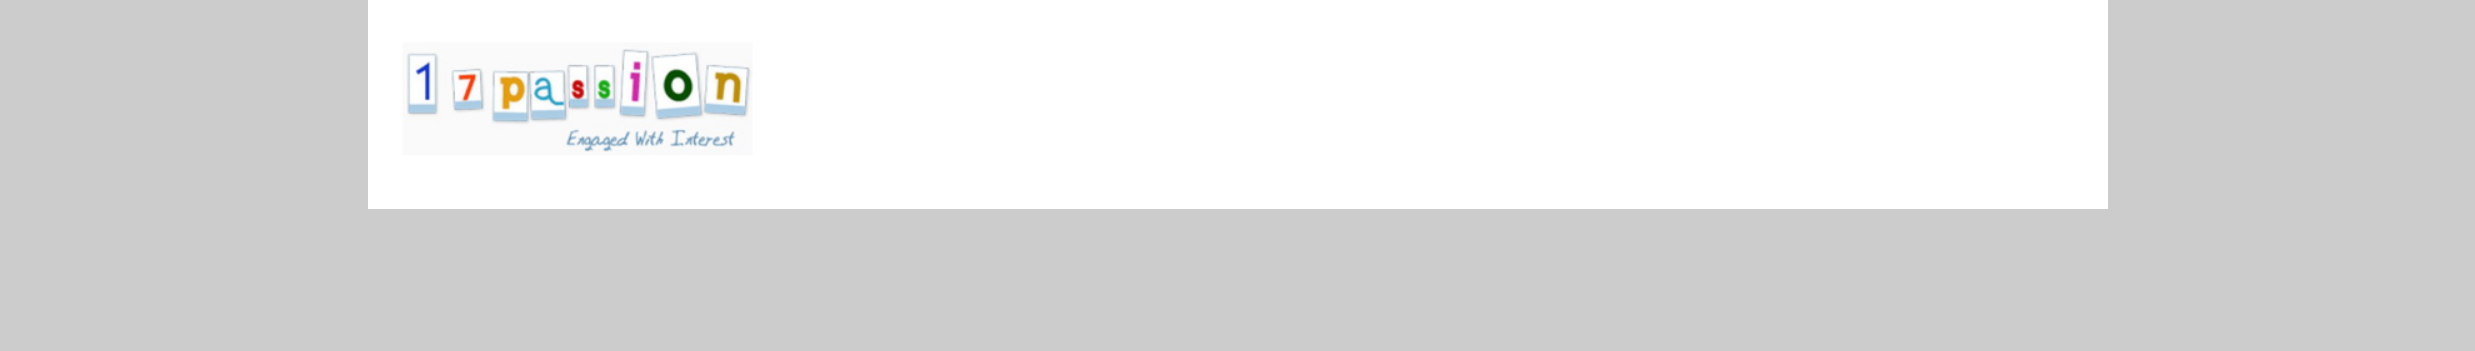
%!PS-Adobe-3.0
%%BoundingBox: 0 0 2475 351
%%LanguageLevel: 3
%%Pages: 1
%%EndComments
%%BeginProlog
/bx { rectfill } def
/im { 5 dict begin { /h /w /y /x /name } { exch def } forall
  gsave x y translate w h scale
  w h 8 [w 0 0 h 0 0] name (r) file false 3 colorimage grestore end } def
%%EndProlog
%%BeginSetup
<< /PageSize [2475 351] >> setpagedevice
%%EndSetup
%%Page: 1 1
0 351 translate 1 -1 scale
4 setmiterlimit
0.8 setgray
0 0 2475 351 bx
1 setgray
368 0 1740 209 bx
(image0.raw) 402 42 351 113 im
showpage
%%EOF
